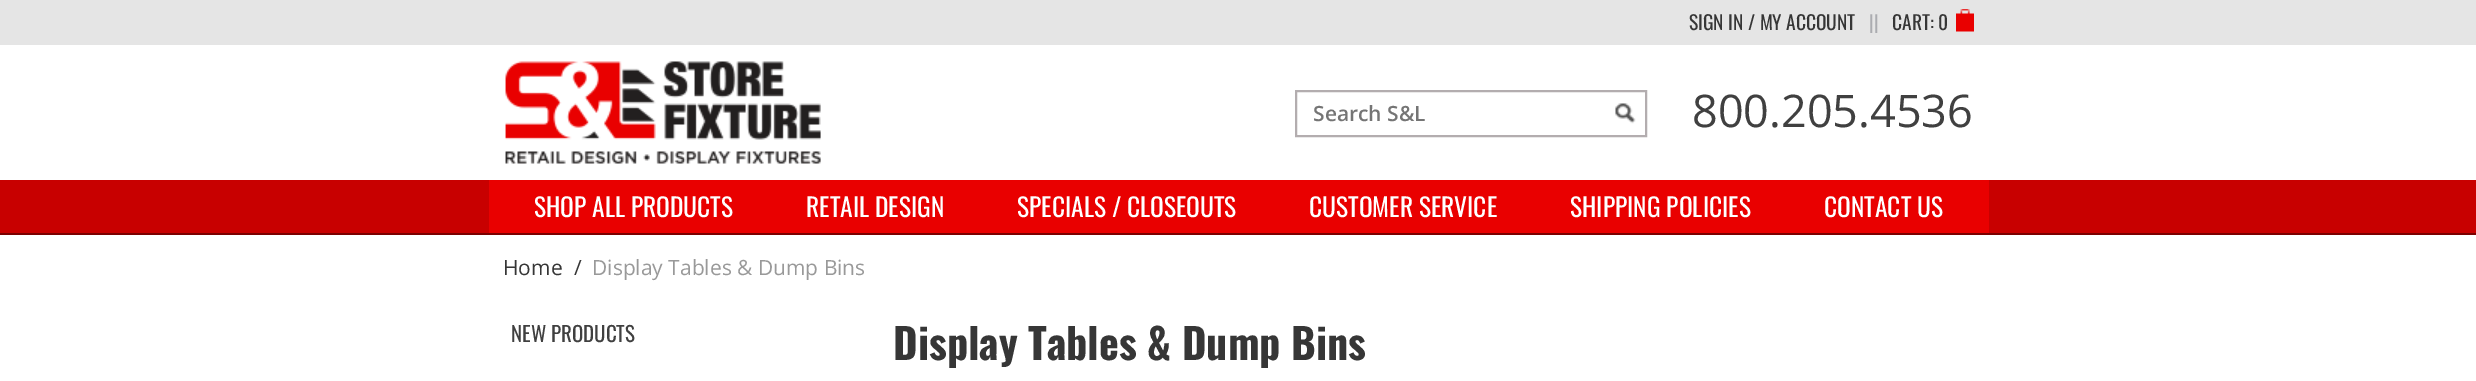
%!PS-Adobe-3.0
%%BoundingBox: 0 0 2476 381
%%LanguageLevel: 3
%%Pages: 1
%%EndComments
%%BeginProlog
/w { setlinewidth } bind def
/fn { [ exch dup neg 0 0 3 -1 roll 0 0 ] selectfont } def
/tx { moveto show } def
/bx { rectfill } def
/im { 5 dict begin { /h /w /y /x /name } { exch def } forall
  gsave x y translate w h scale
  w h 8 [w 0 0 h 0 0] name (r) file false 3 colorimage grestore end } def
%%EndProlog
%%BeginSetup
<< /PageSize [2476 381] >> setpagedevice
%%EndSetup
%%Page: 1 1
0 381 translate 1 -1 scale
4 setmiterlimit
1 setgray
0 0 2476 381 bx
0.898 setgray
0 0 2476 45 bx
/Oswald-Regular 19.5 fn
0.212 setgray
(SIGN IN / MY ACCOUNT) 1689 30 tx
0.671 0.675 0.69 setrgbcolor
(||) 1869 30 tx
0.212 setgray
(CART: 0) 1892 30 tx
(image0.raw) 1956 9 18 23 im
(image1.raw) 505 61 316 103 im
0.702 0.678 0.686 setrgbcolor
2 w
1296 91 350 45 rectstroke
/OpenSans-SemiBold 21 fn
0.459 setgray
(Search S&L) 1313 121 tx
(image2.raw) 1615 103 21 21 im
/OpenSans-Regular 45 fn
0.251 setgray
(800.205.4536) 1692 127 tx
0.784 0 0 setrgbcolor
0 180 2476 53 bx
0.482 0 0 setrgbcolor
0 233 2476 2 bx
0.914 0 0 setrgbcolor
489 180 1500 53 bx
/Oswald-Regular 25.5 fn
1 setgray
(SHOP ALL PRODUCTS) 534 217 tx
(RETAIL DESIGN) 806 217 tx
(SPECIALS / CLOSEOUTS) 1017 217 tx
(CUSTOMER SERVICE) 1309 217 tx
(SHIPPING POLICIES) 1570 217 tx
(CONTACT US) 1824 217 tx
/OpenSans-Regular 21 fn
0.212 setgray
(Home) 503 275 tx
(/) 574 275 tx
0.6 setgray
(Display Tables & Dump Bins) 592 275 tx
/Oswald-Regular 21 fn
0.251 setgray
(NEW PRODUCTS) 511 342 tx
/Oswald-Bold 42 fn
0.212 setgray
(Display Tables & Dump Bins) 893 360 tx
showpage
%%EOF
